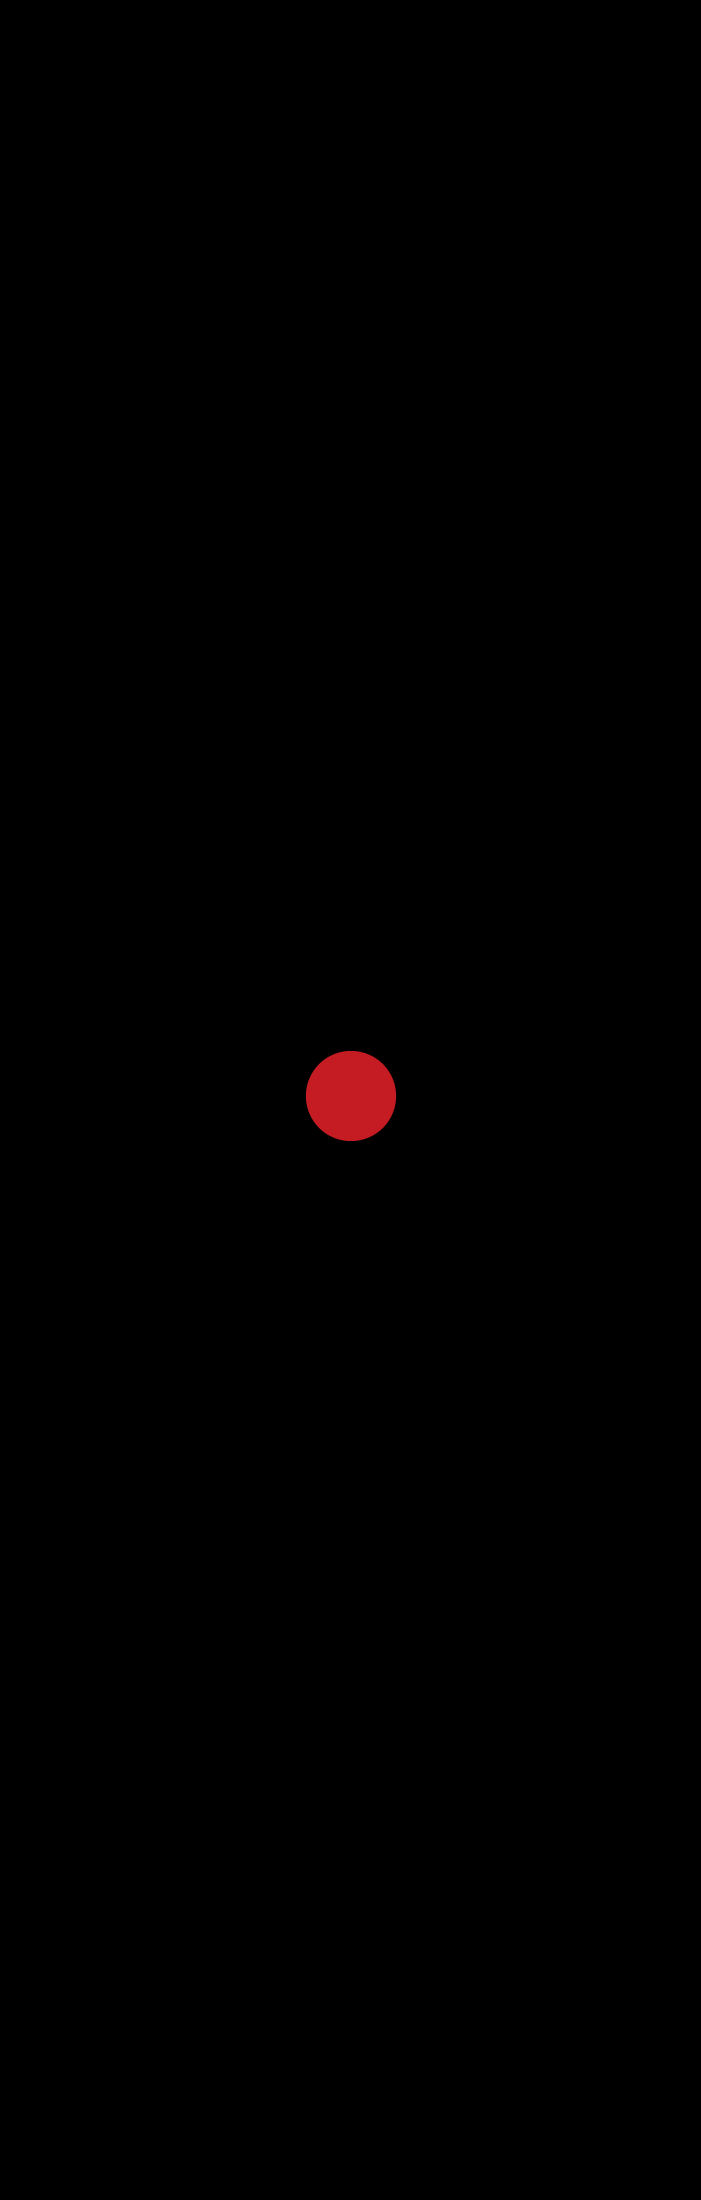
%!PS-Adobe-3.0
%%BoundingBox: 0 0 701 2200
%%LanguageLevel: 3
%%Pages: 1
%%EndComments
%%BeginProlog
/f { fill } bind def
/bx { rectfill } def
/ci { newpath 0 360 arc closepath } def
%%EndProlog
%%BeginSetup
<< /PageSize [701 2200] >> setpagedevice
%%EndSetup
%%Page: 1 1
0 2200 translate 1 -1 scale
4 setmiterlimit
0 setgray
0 0 701 2200 bx
0.773 0.11 0.137 setrgbcolor
351 1096 45 ci f
showpage
%%EOF
